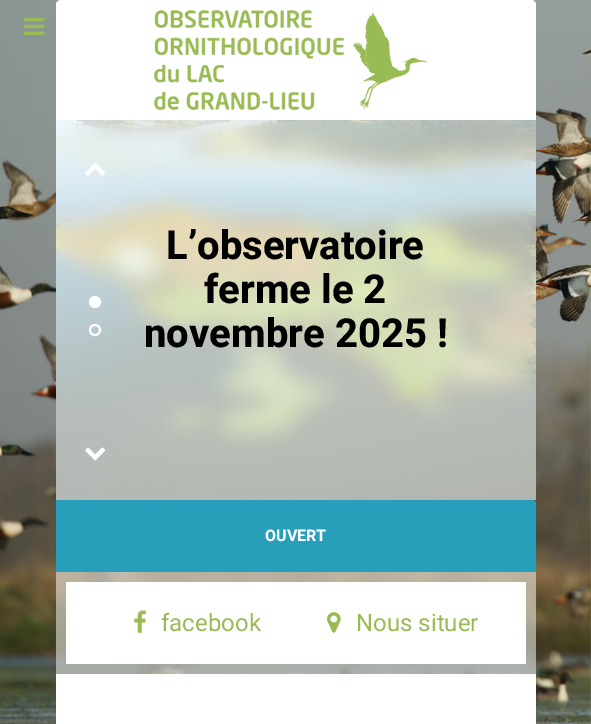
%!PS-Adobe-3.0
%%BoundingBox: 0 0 591 724
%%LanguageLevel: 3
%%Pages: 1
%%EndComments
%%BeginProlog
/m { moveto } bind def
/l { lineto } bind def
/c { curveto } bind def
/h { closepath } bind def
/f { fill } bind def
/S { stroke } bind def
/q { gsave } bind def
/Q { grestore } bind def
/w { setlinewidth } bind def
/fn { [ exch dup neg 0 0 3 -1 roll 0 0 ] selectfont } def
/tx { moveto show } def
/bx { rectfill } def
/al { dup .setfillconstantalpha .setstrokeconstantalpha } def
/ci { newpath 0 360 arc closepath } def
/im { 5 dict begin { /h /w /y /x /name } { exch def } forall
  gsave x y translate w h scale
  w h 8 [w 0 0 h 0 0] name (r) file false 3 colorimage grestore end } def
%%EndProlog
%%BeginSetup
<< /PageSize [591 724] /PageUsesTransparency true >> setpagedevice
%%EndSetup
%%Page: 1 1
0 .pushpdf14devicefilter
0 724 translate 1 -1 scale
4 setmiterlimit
1 setgray
0 0 591 724 bx
(image0.raw) 0 0 591 724 im
(image1.raw) 24 17 21 18 im
61 0 m 531 0 l 534 0 536 2 536 5 c 536 120 l 56 120 l 56 5 l 56 2 58 0 61 0 c h f
(image2.raw) 154 10 274 100 im
(image5.raw) 56 120 480 380 im
(image6.raw) 56 120 480 348 im
0.6 al
56 120 480 380 bx
1 al
95 302 5 ci q f Q
2 w
S
95 330 5 ci S
(image3.raw) 85 163 20 13 im
(image4.raw) 85 447 21 14 im
/Heebo-Bold 40 fn
0 setgray
(L’observatoire) 166 259 tx
(ferme le 2) 204 303 tx
(novembre 2025 !) 144 347 tx
(image7.raw) 56 500 480 174 im
0.5 al
1 setgray
56 500 m 531 500 l 534 500 536 502 536 505 c 536 674 l 56 674 l h f
1 al
0.153 0.624 0.729 setrgbcolor
56 500 m 531 500 l 534 500 536 502 536 505 c 536 572 l 56 572 l h f
/Heebo-Bold 16 fn
1 setgray
(OUVERT) 265 541 tx
66 582 460 82 bx
(image8.raw) 134 610 12 23 im
/Heebo-Regular 24 fn
0.596 0.733 0.329 setrgbcolor
(facebook) 161 631 tx
(image9.raw) 327 612 14 21 im
(Nous situer) 356 631 tx
1 setgray
56 674 480 50 bx
.poppdf14devicefilter showpage
%%EOF
